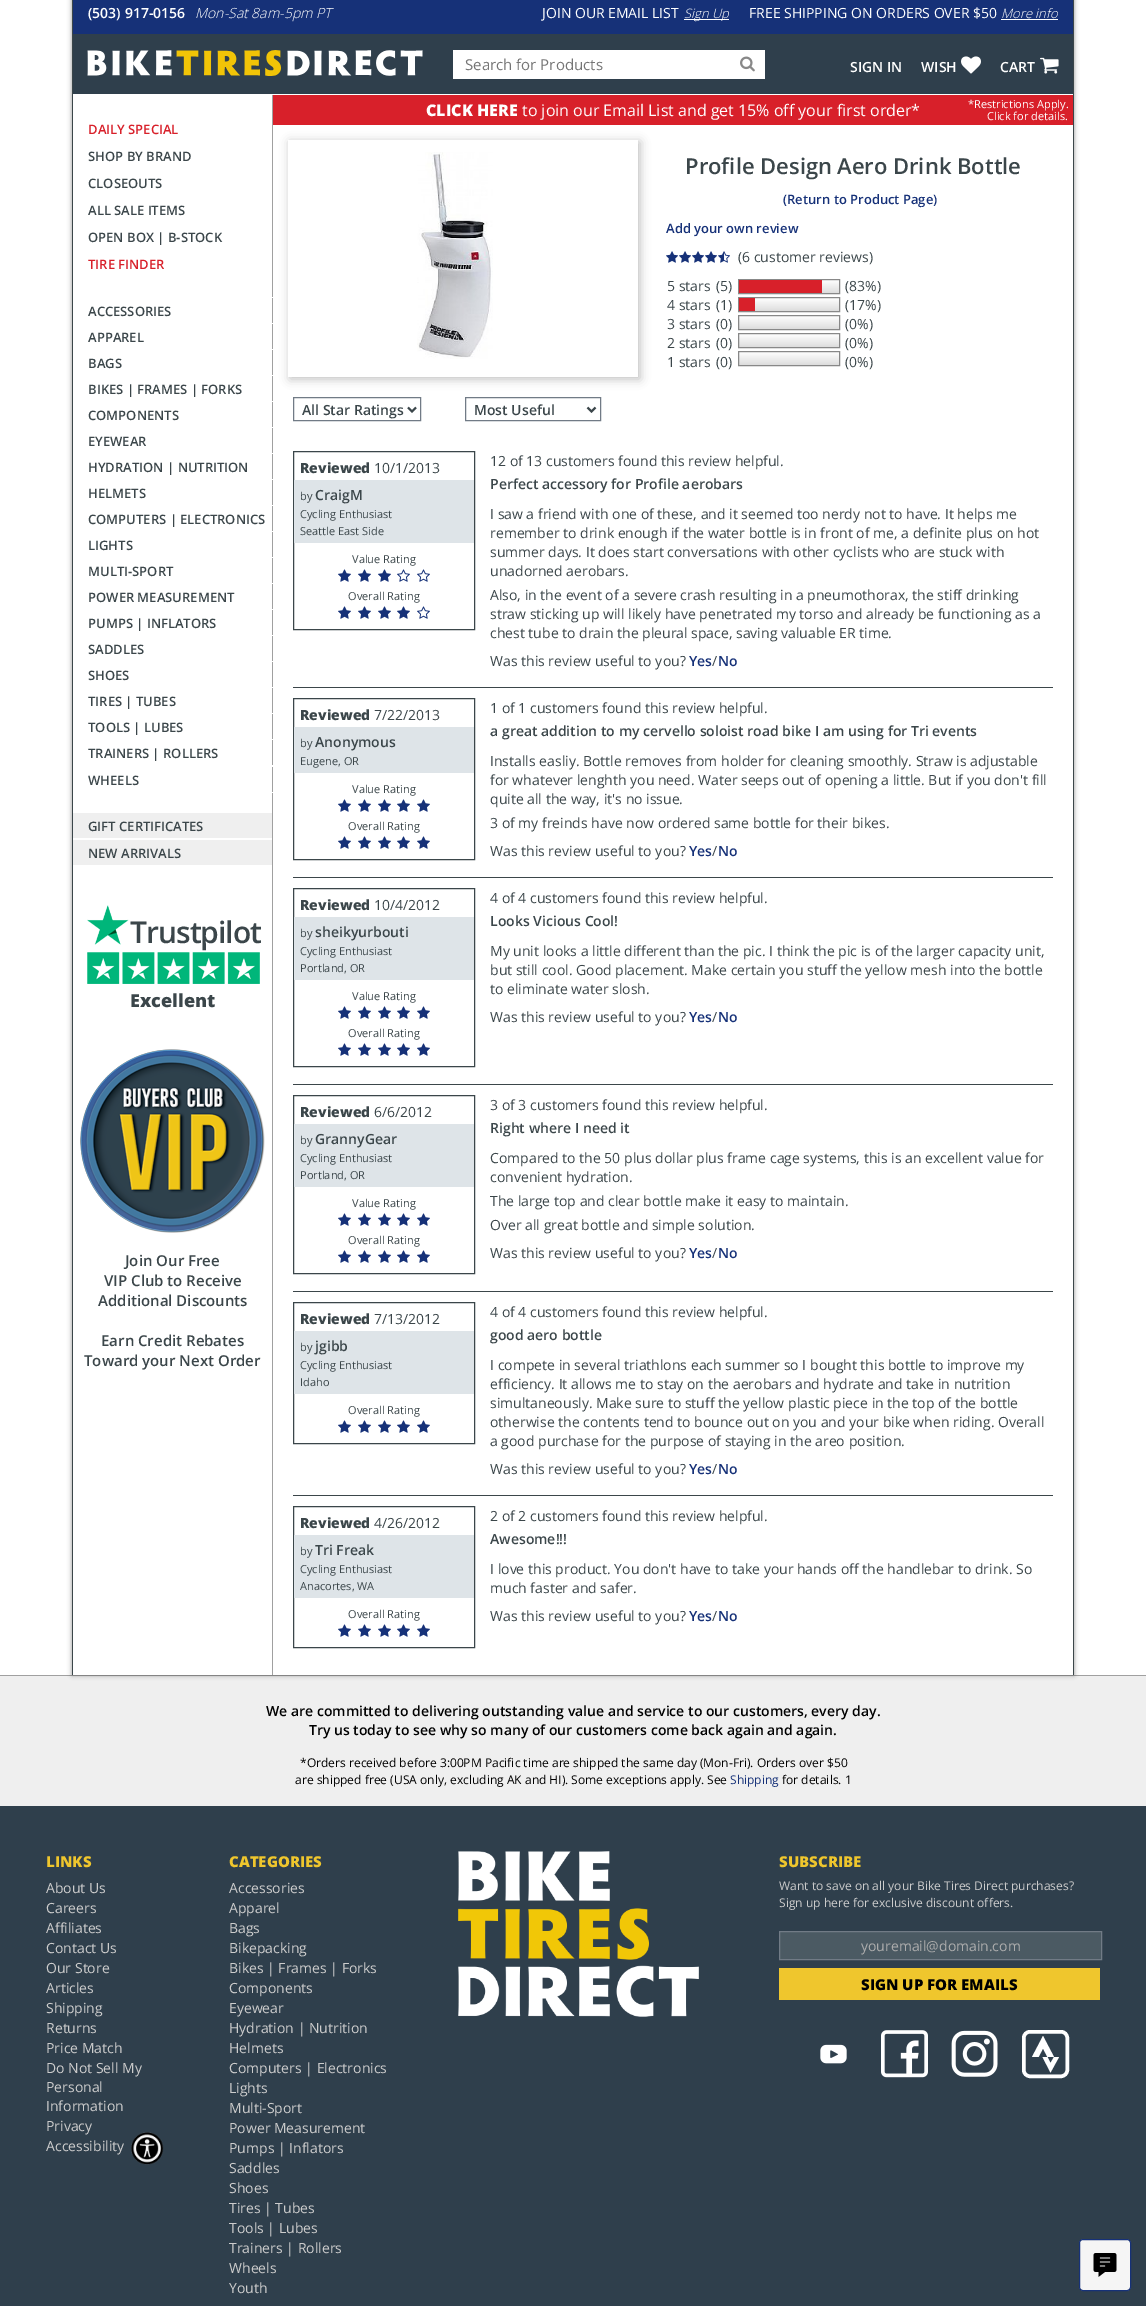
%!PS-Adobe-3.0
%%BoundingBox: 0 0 1146 2306
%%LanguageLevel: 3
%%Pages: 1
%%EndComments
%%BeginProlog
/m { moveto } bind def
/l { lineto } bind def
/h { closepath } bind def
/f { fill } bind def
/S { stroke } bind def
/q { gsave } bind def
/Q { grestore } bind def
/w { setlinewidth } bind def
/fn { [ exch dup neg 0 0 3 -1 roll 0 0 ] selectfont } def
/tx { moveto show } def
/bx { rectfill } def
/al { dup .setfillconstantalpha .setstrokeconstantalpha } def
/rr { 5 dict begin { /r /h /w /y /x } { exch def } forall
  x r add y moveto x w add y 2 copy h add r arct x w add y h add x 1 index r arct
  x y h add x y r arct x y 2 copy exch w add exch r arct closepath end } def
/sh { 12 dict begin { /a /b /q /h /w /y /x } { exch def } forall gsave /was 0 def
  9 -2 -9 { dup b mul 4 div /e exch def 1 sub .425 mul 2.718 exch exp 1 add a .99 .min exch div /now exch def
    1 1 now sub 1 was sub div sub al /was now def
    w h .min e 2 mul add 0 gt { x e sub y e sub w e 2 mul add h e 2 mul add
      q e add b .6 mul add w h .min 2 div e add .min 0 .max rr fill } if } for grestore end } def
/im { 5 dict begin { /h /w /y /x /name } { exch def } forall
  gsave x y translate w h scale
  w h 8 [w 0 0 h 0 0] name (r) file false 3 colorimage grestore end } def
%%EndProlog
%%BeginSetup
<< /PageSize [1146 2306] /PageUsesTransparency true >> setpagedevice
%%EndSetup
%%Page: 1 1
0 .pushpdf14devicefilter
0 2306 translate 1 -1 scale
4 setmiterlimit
1 setgray
0 0 1146 2306 bx
0.937 setgray
0 1676 1146 130 bx
0.627 setgray
0 1675 1146 1 bx
q
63 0 m 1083 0 l 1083 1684 l 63 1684 l h 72 -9 m 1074 -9 l 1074 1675 l 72 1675 l h eoclip newpath
0 setgray
72 -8 1002 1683 0 2.5 0.4 sh
Q
0.231 0.275 0.29 setrgbcolor
1073 0 1 1675 bx
72 0 1 1675 bx
0.086 0.192 0.471 setrgbcolor
73 0 1000 34 bx
/OpenSans-SemiBold 14 fn
1 setgray
(\(503\) 917-0156) 88 18 tx
/OpenSans-LightItalic 14 fn
(Mon-Sat 8am-5pm PT) 195 18 tx
/OpenSans-Regular 14 fn
(JOIN OUR EMAIL LIST) 542 18 tx
684 19 45 1 bx
/OpenSans-LightItalic 13 fn
(Sign Up) 684 18 tx
/OpenSans-Regular 14 fn
(FREE SHIPPING ON ORDERS OVER $50) 749 18 tx
/OpenSans-LightItalic 13 fn
(More info) 1001 18 tx
1001 19 57 1 bx
0.184 0.247 0.298 setrgbcolor
73 34 1000 60 bx
(image0.raw) 87 50 336 26 im
1 setgray
453 50 312 29 bx
/OpenSans-Regular 15 fn
0.459 setgray
(Search for Products) 465 70 tx
(image1.raw) 740 56 15 16 im
/OpenSans-SemiBold 14 fn
1 setgray
(SIGN IN) 850 72 tx
(WISH) 921 72 tx
(image2.raw) 961 56 20 18 im
(CART) 1000 72 tx
(image3.raw) 1040 57 19 17 im
0.627 setgray
272 95 1 1580 bx
/OpenSans-SemiBold 13 fn
0.847 0.125 0.165 setrgbcolor
(DAILY SPECIAL) 88 134 tx
0.231 0.275 0.29 setrgbcolor
(SHOP BY BRAND) 88 161 tx
(CLOSEOUTS) 88 188 tx
(ALL SALE ITEMS) 88 215 tx
(OPEN BOX | B-STOCK) 88 242 tx
0.847 0.125 0.165 setrgbcolor
(TIRE FINDER) 88 269 tx
1 setgray
272 297 1 1 bx
272 323 1 1 bx
0.231 0.275 0.29 setrgbcolor
(ACCESSORIES) 88 316 tx
1 setgray
272 349 1 1 bx
0.231 0.275 0.29 setrgbcolor
(APPAREL) 88 342 tx
1 setgray
272 375 1 1 bx
0.231 0.275 0.29 setrgbcolor
(BAGS) 88 368 tx
1 setgray
272 401 1 1 bx
0.231 0.275 0.29 setrgbcolor
(BIKES | FRAMES | FORKS) 88 394 tx
1 setgray
272 427 1 1 bx
0.231 0.275 0.29 setrgbcolor
(COMPONENTS) 88 420 tx
1 setgray
272 453 1 1 bx
0.231 0.275 0.29 setrgbcolor
(EYEWEAR) 88 446 tx
1 setgray
272 479 1 1 bx
0.231 0.275 0.29 setrgbcolor
(HYDRATION | NUTRITION) 88 472 tx
1 setgray
272 505 1 1 bx
0.231 0.275 0.29 setrgbcolor
(HELMETS) 88 498 tx
1 setgray
272 531 1 1 bx
0.231 0.275 0.29 setrgbcolor
(COMPUTERS | ELECTRONICS) 88 524 tx
1 setgray
272 557 1 1 bx
0.231 0.275 0.29 setrgbcolor
(LIGHTS) 88 550 tx
1 setgray
272 583 1 1 bx
0.231 0.275 0.29 setrgbcolor
(MULTI-SPORT) 88 576 tx
1 setgray
272 609 1 1 bx
0.231 0.275 0.29 setrgbcolor
(POWER MEASUREMENT) 88 602 tx
1 setgray
272 635 1 1 bx
0.231 0.275 0.29 setrgbcolor
(PUMPS | INFLATORS) 88 628 tx
1 setgray
272 661 1 1 bx
0.231 0.275 0.29 setrgbcolor
(SADDLES) 88 654 tx
1 setgray
272 687 1 1 bx
0.231 0.275 0.29 setrgbcolor
(SHOES) 88 680 tx
1 setgray
272 713 1 1 bx
0.231 0.275 0.29 setrgbcolor
(TIRES | TUBES) 88 706 tx
1 setgray
272 739 1 1 bx
0.231 0.275 0.29 setrgbcolor
(TOOLS | LUBES) 88 732 tx
1 setgray
272 765 1 2 bx
0.231 0.275 0.29 setrgbcolor
(TRAINERS | ROLLERS) 88 758 tx
1 setgray
272 792 1 1 bx
0.231 0.275 0.29 setrgbcolor
(WHEELS) 88 785 tx
0.937 setgray
73 813 199 25 bx
0.231 0.275 0.29 setrgbcolor
(GIFT CERTIFICATES) 88 831 tx
0.937 setgray
73 840 199 25 bx
0.231 0.275 0.29 setrgbcolor
(NEW ARRIVALS) 88 858 tx
(image4.raw) 87 905 173 79 im
/OpenSans-SemiBold 30 fn
130 943 m -1 0 (Trustpilot) ashow
/OpenSans-ExtraBold 18 fn
(Excellent) 130 1007 tx
(image5.raw) 80 1049 185 184 im
/OpenSans-SemiBold 15 fn
(Join Our Free) 125 1266 tx
(VIP Club to Receive) 104 1286 tx
(Additional Discounts) 98 1306 tx
(Earn Credit Rebates) 101 1346 tx
(Toward your Next Order) 84 1366 tx
0.847 0.125 0.165 setrgbcolor
273 95 800 30 bx
/OpenSans-ExtraBold 16 fn
1 setgray
(CLICK HERE) 426 116 tx
/OpenSans-Regular 16 fn
(to join our Email List and get 15% off your first order*) 522 116 tx
/OpenSans-Regular 11 fn
(*Restrictions Apply.) 968 108 tx
(Click for details.) 987 120 tx
q
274 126 m 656 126 l 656 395 l 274 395 l h 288 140 m 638 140 l 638 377 l 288 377 l h eoclip newpath
0 setgray
290 142 350 237 0 5 0.25 sh
Q
(image6.raw) 417 152 76 207 im
/OpenSans-SemiBold 22 fn
0.231 0.275 0.29 setrgbcolor
(Profile Design) 685 174 tx
(Aero Drink Bottle) 837 174 tx
/OpenSans-SemiBold 13 fn
0.086 0.192 0.471 setrgbcolor
(\(Return to Product Page\)) 783 204 tx
(Add your own review) 666 233 tx
(image7.raw) 666 251 12 12 im
(image7.raw) 679 251 12 12 im
(image7.raw) 692 251 12 12 im
(image7.raw) 705 251 12 12 im
(image8.raw) 718 251 12 12 im
/OpenSans-Regular 14 fn
0.231 0.275 0.29 setrgbcolor
(\(6 customer reviews\)) 738 262 tx
(5 stars) 667 291 tx
(4 stars) 667 310 tx
(3 stars) 667 329 tx
(2 stars) 667 348 tx
(1 stars) 667 367 tx
(\(5\)) 716 291 tx
(\(1\)) 716 310 tx
(\(0\)) 716 329 tx
(\(0\)) 716 348 tx
(\(0\)) 716 367 tx
q 822 281 m 839 281 l 839 293 l 822 293 l h clip newpath
<< /ShadingType 2 /ColorSpace /DeviceRGB /Coords [789 280 789 293] /Extend [true true] /Function << /FunctionType 2 /Domain [0 1] /C0 [1 1 1] /C1 [0.867 0.867 0.867] /N 1 >> >> shfill Q
0.533 setgray
738.5 279.5 101 14 rectstroke
0.847 0.125 0.165 setrgbcolor
739 280 83 13 bx
q 755 299 m 839 299 l 839 311 l 755 311 l h clip newpath
<< /ShadingType 2 /ColorSpace /DeviceRGB /Coords [789 298 789 311] /Extend [true true] /Function << /FunctionType 2 /Domain [0 1] /C0 [1 1 1] /C1 [0.867 0.867 0.867] /N 1 >> >> shfill Q
0.533 setgray
738.5 297.5 101 14 rectstroke
0.847 0.125 0.165 setrgbcolor
739 298 16 13 bx
q 739 317 m 839 317 l 839 329 l 739 329 l h clip newpath
<< /ShadingType 2 /ColorSpace /DeviceRGB /Coords [789 316 789 329] /Extend [true true] /Function << /FunctionType 2 /Domain [0 1] /C0 [1 1 1] /C1 [0.867 0.867 0.867] /N 1 >> >> shfill Q
0.533 setgray
738.5 315.5 101 14 rectstroke
q 739 335 m 839 335 l 839 347 l 739 347 l h clip newpath
<< /ShadingType 2 /ColorSpace /DeviceRGB /Coords [789 334 789 347] /Extend [true true] /Function << /FunctionType 2 /Domain [0 1] /C0 [1 1 1] /C1 [0.867 0.867 0.867] /N 1 >> >> shfill Q
738.5 333.5 101 14 rectstroke
q 739 353 m 839 353 l 839 365 l 739 365 l h clip newpath
<< /ShadingType 2 /ColorSpace /DeviceRGB /Coords [789 352 789 365] /Extend [true true] /Function << /FunctionType 2 /Domain [0 1] /C0 [1 1 1] /C1 [0.867 0.867 0.867] /N 1 >> >> shfill Q
738.5 351.5 101 14 rectstroke
0.231 0.275 0.29 setrgbcolor
(\(83%\)) 845 291 tx
(\(17%\)) 845 310 tx
(\(0%\)) 845 329 tx
(\(0%\)) 845 348 tx
(\(0%\)) 845 367 tx
0.443 0.482 0.525 setrgbcolor
293.5 397.5 127 23 rectstroke
0.231 0.275 0.29 setrgbcolor
2 w
408 407.5 m 412 411.5 l 416 407.5 l S
/OpenSans-SemiBold 14 fn
(All Star Ratings) 302 415 tx
0.443 0.482 0.525 setrgbcolor
1 w
465.5 397.5 135 23 rectstroke
0.231 0.275 0.29 setrgbcolor
2 w
587.5 407.5 m 591.5 411.5 l 595.5 407.5 l S
(Most Useful) 474 415 tx
1 w
293.5 451.5 181 178 rectstroke
/OpenSans-ExtraBold 14 fn
(Reviewed) 300 473 tx
/OpenSans-Regular 14 fn
(10/1/2013) 374 473 tx
0.871 0.894 0.91 setrgbcolor
294 480 180 63 bx
/OpenSans-Regular 11 fn
0.231 0.275 0.29 setrgbcolor
(by) 300 500 tx
/OpenSans-SemiBold 14 fn
(CraigM) 315 500 tx
/OpenSans-Regular 11 fn
(Cycling Enthusiast) 300 518 tx
(Seattle East Side) 300 535 tx
(Value Rating) 352 563 tx
(image9.raw) 338 569 13 13 im
(image9.raw) 358 569 13 13 im
(image9.raw) 378 569 13 13 im
(image10.raw) 397 569 13 13 im
(image10.raw) 417 569 13 13 im
(Overall Rating) 348 600 tx
(image9.raw) 338 606 13 13 im
(image9.raw) 358 606 13 13 im
(image9.raw) 378 606 13 13 im
(image9.raw) 397 606 13 13 im
(image10.raw) 417 606 13 13 im
/OpenSans-Regular 14 fn
(12 of 13 customers found this review helpful.) 490 466 tx
/OpenSans-SemiBold 14 fn
(Perfect accessory for Profile aerobars) 490 489 tx
/OpenSans-Regular 14 fn
(I saw a friend with one of these, and it seemed too nerdy not to have. It helps me) 490 519 tx
(remember to drink enough if the water bottle is in front of me, a definite plus on hot) 490 538 tx
(summer days. It does start conversations with other cyclists who are stuck with) 490 557 tx
(unadorned aerobars.) 490 576 tx
(Also, in the event of a severe crash resulting in a pneumothorax, the stiff drinking) 490 600 tx
(straw sticking up will likely have penetrated my torso and already be functioning as a) 490 619 tx
(chest tube to drain the pleural space, saving valuable ER time.) 490 638 tx
(Was this review useful to you?) 490 666 tx
/OpenSans-SemiBold 14 fn
0.086 0.192 0.471 setrgbcolor
(Yes) 689 666 tx
/OpenSans-Regular 14 fn
0.231 0.275 0.29 setrgbcolor
(/) 712 666 tx
/OpenSans-SemiBold 14 fn
0.086 0.192 0.471 setrgbcolor
(No) 718 666 tx
0.231 0.275 0.29 setrgbcolor
293 687 760 1 bx
293.5 698.5 181 161 rectstroke
/OpenSans-ExtraBold 14 fn
(Reviewed) 300 720 tx
/OpenSans-Regular 14 fn
(7/22/2013) 374 720 tx
0.871 0.894 0.91 setrgbcolor
294 727 180 46 bx
/OpenSans-Regular 11 fn
0.231 0.275 0.29 setrgbcolor
(by) 300 747 tx
/OpenSans-SemiBold 14 fn
(Anonymous) 315 747 tx
/OpenSans-Regular 11 fn
(Eugene, OR) 300 765 tx
(Value Rating) 352 793 tx
(image9.raw) 338 799 13 13 im
(image9.raw) 358 799 13 13 im
(image9.raw) 378 799 13 13 im
(image9.raw) 397 799 13 13 im
(image9.raw) 417 799 13 13 im
(Overall Rating) 348 830 tx
(image9.raw) 338 836 13 13 im
(image9.raw) 358 836 13 13 im
(image9.raw) 378 836 13 13 im
(image9.raw) 397 836 13 13 im
(image9.raw) 417 836 13 13 im
/OpenSans-Regular 14 fn
(1 of 1 customers found this review helpful.) 490 713 tx
/OpenSans-SemiBold 14 fn
(a great addition to my cervello soloist road bike I am using for Tri events) 490 736 tx
/OpenSans-Regular 14 fn
(Installs easliy. Bottle removes from holder for cleaning smoothly. Straw is adjustable) 490 766 tx
(for whatever lenghth you need. Water seeps out of opening a little. But if you don't fill) 490 785 tx
(quite all the way, it's no issue.) 490 804 tx
(3 of my freinds have now ordered same bottle for their bikes.) 490 828 tx
(Was this review useful to you?) 490 856 tx
/OpenSans-SemiBold 14 fn
0.086 0.192 0.471 setrgbcolor
(Yes) 689 856 tx
/OpenSans-Regular 14 fn
0.231 0.275 0.29 setrgbcolor
(/) 712 856 tx
/OpenSans-SemiBold 14 fn
0.086 0.192 0.471 setrgbcolor
(No) 718 856 tx
0.231 0.275 0.29 setrgbcolor
293 877 760 1 bx
293.5 888.5 181 178 rectstroke
/OpenSans-ExtraBold 14 fn
(Reviewed) 300 910 tx
/OpenSans-Regular 14 fn
(10/4/2012) 374 910 tx
0.871 0.894 0.91 setrgbcolor
294 917 180 63 bx
/OpenSans-Regular 11 fn
0.231 0.275 0.29 setrgbcolor
(by) 300 937 tx
/OpenSans-SemiBold 14 fn
(sheikyurbouti) 315 937 tx
/OpenSans-Regular 11 fn
(Cycling Enthusiast) 300 955 tx
(Portland, OR) 300 972 tx
(Value Rating) 352 1000 tx
(image9.raw) 338 1006 13 13 im
(image9.raw) 358 1006 13 13 im
(image9.raw) 378 1006 13 13 im
(image9.raw) 397 1006 13 13 im
(image9.raw) 417 1006 13 13 im
(Overall Rating) 348 1037 tx
(image9.raw) 338 1043 13 13 im
(image9.raw) 358 1043 13 13 im
(image9.raw) 378 1043 13 13 im
(image9.raw) 397 1043 13 13 im
(image9.raw) 417 1043 13 13 im
/OpenSans-Regular 14 fn
(4 of 4 customers found this review helpful.) 490 903 tx
/OpenSans-SemiBold 14 fn
(Looks Vicious Cool!) 490 926 tx
/OpenSans-Regular 14 fn
(My unit looks a little different than the pic. I think the pic is of the larger capacity unit,) 490 956 tx
(but still cool. Good placement. Make certain you stuff the yellow mesh into the bottle) 490 975 tx
(to eliminate water slosh.) 490 994 tx
(Was this review useful to you?) 490 1022 tx
/OpenSans-SemiBold 14 fn
0.086 0.192 0.471 setrgbcolor
(Yes) 689 1022 tx
/OpenSans-Regular 14 fn
0.231 0.275 0.29 setrgbcolor
(/) 712 1022 tx
/OpenSans-SemiBold 14 fn
0.086 0.192 0.471 setrgbcolor
(No) 718 1022 tx
0.231 0.275 0.29 setrgbcolor
293 1084 760 1 bx
293.5 1095.5 181 178 rectstroke
/OpenSans-ExtraBold 14 fn
(Reviewed) 300 1117 tx
/OpenSans-Regular 14 fn
(6/6/2012) 374 1117 tx
0.871 0.894 0.91 setrgbcolor
294 1124 180 63 bx
/OpenSans-Regular 11 fn
0.231 0.275 0.29 setrgbcolor
(by) 300 1144 tx
/OpenSans-SemiBold 14 fn
(GrannyGear) 315 1144 tx
/OpenSans-Regular 11 fn
(Cycling Enthusiast) 300 1162 tx
(Portland, OR) 300 1179 tx
(Value Rating) 352 1207 tx
(image9.raw) 338 1213 13 13 im
(image9.raw) 358 1213 13 13 im
(image9.raw) 378 1213 13 13 im
(image9.raw) 397 1213 13 13 im
(image9.raw) 417 1213 13 13 im
(Overall Rating) 348 1244 tx
(image9.raw) 338 1250 13 13 im
(image9.raw) 358 1250 13 13 im
(image9.raw) 378 1250 13 13 im
(image9.raw) 397 1250 13 13 im
(image9.raw) 417 1250 13 13 im
/OpenSans-Regular 14 fn
(3 of 3 customers found this review helpful.) 490 1110 tx
/OpenSans-SemiBold 14 fn
(Right where I need it) 490 1133 tx
/OpenSans-Regular 14 fn
(Compared to the 50 plus dollar plus frame cage systems, this is an excellent value for) 490 1163 tx
(convenient hydration.) 490 1182 tx
(The large top and clear bottle make it easy to maintain.) 490 1206 tx
(Over all great bottle and simple solution.) 490 1230 tx
(Was this review useful to you?) 490 1258 tx
/OpenSans-SemiBold 14 fn
0.086 0.192 0.471 setrgbcolor
(Yes) 689 1258 tx
/OpenSans-Regular 14 fn
0.231 0.275 0.29 setrgbcolor
(/) 712 1258 tx
/OpenSans-SemiBold 14 fn
0.086 0.192 0.471 setrgbcolor
(No) 718 1258 tx
0.231 0.275 0.29 setrgbcolor
293 1291 760 1 bx
293.5 1302.5 181 141 rectstroke
/OpenSans-ExtraBold 14 fn
(Reviewed) 300 1324 tx
/OpenSans-Regular 14 fn
(7/13/2012) 374 1324 tx
0.871 0.894 0.91 setrgbcolor
294 1331 180 63 bx
/OpenSans-Regular 11 fn
0.231 0.275 0.29 setrgbcolor
(by) 300 1351 tx
/OpenSans-SemiBold 14 fn
(jgibb) 315 1351 tx
/OpenSans-Regular 11 fn
(Cycling Enthusiast) 300 1369 tx
(Idaho) 300 1386 tx
(Overall Rating) 348 1414 tx
(image9.raw) 338 1420 13 13 im
(image9.raw) 358 1420 13 13 im
(image9.raw) 378 1420 13 13 im
(image9.raw) 397 1420 13 13 im
(image9.raw) 417 1420 13 13 im
/OpenSans-Regular 14 fn
(4 of 4 customers found this review helpful.) 490 1317 tx
/OpenSans-SemiBold 14 fn
(good aero bottle) 490 1340 tx
/OpenSans-Regular 14 fn
(I compete in several triathlons each summer so I bought this bottle to improve my) 490 1370 tx
(efficiency. It allows me to stay on the aerobars and hydrate and take in nutrition) 490 1389 tx
(simultaneously. Make sure to stuff the yellow plastic piece in the top of the bottle) 490 1408 tx
(otherwise the contents tend to bounce out on you and your bike when riding. Overall) 490 1427 tx
(a good purchase for the purpose of staying in the areo position.) 490 1446 tx
(Was this review useful to you?) 490 1474 tx
/OpenSans-SemiBold 14 fn
0.086 0.192 0.471 setrgbcolor
(Yes) 689 1474 tx
/OpenSans-Regular 14 fn
0.231 0.275 0.29 setrgbcolor
(/) 712 1474 tx
/OpenSans-SemiBold 14 fn
0.086 0.192 0.471 setrgbcolor
(No) 718 1474 tx
0.231 0.275 0.29 setrgbcolor
293 1495 760 1 bx
293.5 1506.5 181 141 rectstroke
/OpenSans-ExtraBold 14 fn
(Reviewed) 300 1528 tx
/OpenSans-Regular 14 fn
(4/26/2012) 374 1528 tx
0.871 0.894 0.91 setrgbcolor
294 1535 180 63 bx
/OpenSans-Regular 11 fn
0.231 0.275 0.29 setrgbcolor
(by) 300 1555 tx
/OpenSans-SemiBold 14 fn
(Tri Freak) 315 1555 tx
/OpenSans-Regular 11 fn
(Cycling Enthusiast) 300 1573 tx
(Anacortes, WA) 300 1590 tx
(Overall Rating) 348 1618 tx
(image9.raw) 338 1624 13 13 im
(image9.raw) 358 1624 13 13 im
(image9.raw) 378 1624 13 13 im
(image9.raw) 397 1624 13 13 im
(image9.raw) 417 1624 13 13 im
/OpenSans-Regular 14 fn
(2 of 2 customers found this review helpful.) 490 1521 tx
/OpenSans-SemiBold 14 fn
(Awesome!!!) 490 1544 tx
/OpenSans-Regular 14 fn
(I love this product. You don't have to take your hands off the handlebar to drink. So) 490 1574 tx
(much faster and safer.) 490 1593 tx
(Was this review useful to you?) 490 1621 tx
/OpenSans-SemiBold 14 fn
0.086 0.192 0.471 setrgbcolor
(Yes) 689 1621 tx
/OpenSans-Regular 14 fn
0.231 0.275 0.29 setrgbcolor
(/) 712 1621 tx
/OpenSans-SemiBold 14 fn
0.086 0.192 0.471 setrgbcolor
(No) 718 1621 tx
0 setgray
(We are committed to delivering outstanding value and service to our customers, every day.) 266 1716 tx
(Try us today to see why so many of our customers come back again and again.) 309 1735 tx
/OpenSans-Regular 12.05 fn
(*Orders received before 3:00PM Pacific time are shipped the same day \(Mon-Fri\). Orders over $50) 300 1767 tx
(are shipped free \(USA only, excluding AK and HI\). Some exceptions apply. See) 295 1784 tx
0.086 0.192 0.471 setrgbcolor
(Shipping) 730 1784 tx
0 setgray
(for details. 1) 782 1784 tx
0.184 0.247 0.298 setrgbcolor
0 1806 1146 500 bx
/OpenSans-ExtraBold 15 fn
0.937 0.776 0.176 setrgbcolor
(LINKS) 46 1867 tx
/OpenSans-Regular 14 fn
0.8 setgray
(About Us) 46 1893 tx
(Careers) 46 1913 tx
(Affiliates) 46 1933 tx
(Contact Us) 46 1953 tx
(Our Store) 46 1973 tx
(Articles) 46 1993 tx
(Shipping) 46 2013 tx
(Returns) 46 2033 tx
(Price Match) 46 2053 tx
(Do Not Sell My) 46 2073 tx
(Personal) 46 2092 tx
(Information) 46 2111 tx
(Privacy) 46 2131 tx
(Accessibility) 46 2151 tx
(image11.raw) 131 2132 33 33 im
/OpenSans-ExtraBold 15 fn
0.937 0.776 0.176 setrgbcolor
(CATEGORIES) 229 1867 tx
/OpenSans-Regular 14 fn
0.8 setgray
(Accessories) 229 1893 tx
(Apparel) 229 1913 tx
(Bags) 229 1933 tx
(Bikepacking) 229 1953 tx
(Bikes | Frames | Forks) 229 1973 tx
(Components) 229 1993 tx
(Eyewear) 229 2013 tx
(Hydration | Nutrition) 229 2033 tx
(Helmets) 229 2053 tx
(Computers | Electronics) 229 2073 tx
(Lights) 229 2093 tx
(Multi-Sport) 229 2113 tx
(Power Measurement) 229 2133 tx
(Pumps | Inflators) 229 2153 tx
(Saddles) 229 2173 tx
(Shoes) 229 2193 tx
(Tires | Tubes) 229 2213 tx
(Tools | Lubes) 229 2233 tx
(Trainers | Rollers) 229 2253 tx
(Wheels) 229 2273 tx
(Youth) 229 2293 tx
(image12.raw) 458 1851 241 166 im
/OpenSans-ExtraBold 15 fn
0.937 0.776 0.176 setrgbcolor
(SUBSCRIBE) 779 1867 tx
/OpenSans-Regular 12.05 fn
0.8 setgray
(Want to save on all your Bike Tires Direct purchases?) 779 1890 tx
(Sign up here for exclusive discount offers.) 779 1907 tx
0.294 0.353 0.388 setrgbcolor
779.5 1931.5 m 1101.5 1931.5 l 1101.5 1959.5 l 779.5 1959.5 l h q f Q
0.443 0.482 0.525 setrgbcolor
S
/OpenSans-Regular 14 fn
0.675 setgray
(youremail@domain.com) 861 1951 tx
0.937 0.776 0.176 setrgbcolor
779 1968 321 32 bx
/OpenSans-ExtraBold 15 fn
0 setgray
(SIGN UP FOR EMAILS) 861 1990 tx
(image13.raw) 881 2030 47 48 im
(image14.raw) 951 2030 47 47 im
1 setgray
1043 2036 m 1032 2057 l 1038.5 2057 l 1043 2048.5 l 1047.5 2057 l 1054 2057 l h 1054 2057 m 1050.5 2063 l 1047.5 2057 l 1042.5 2057 l 1050.5 2072.5 l 1059 2057 l h f
3.5 w
1023.75 2031.75 43.5 44.5 6.25 rr S
(image15.raw) 820 2044 27 20 im
0.961 setgray
1079.5 2239.5 51 51 3.5 rr q f Q
0.086 0.192 0.471 setrgbcolor
1 w
S
(image16.raw) 1093 2253 24 24 im
.poppdf14devicefilter showpage
%%EOF
